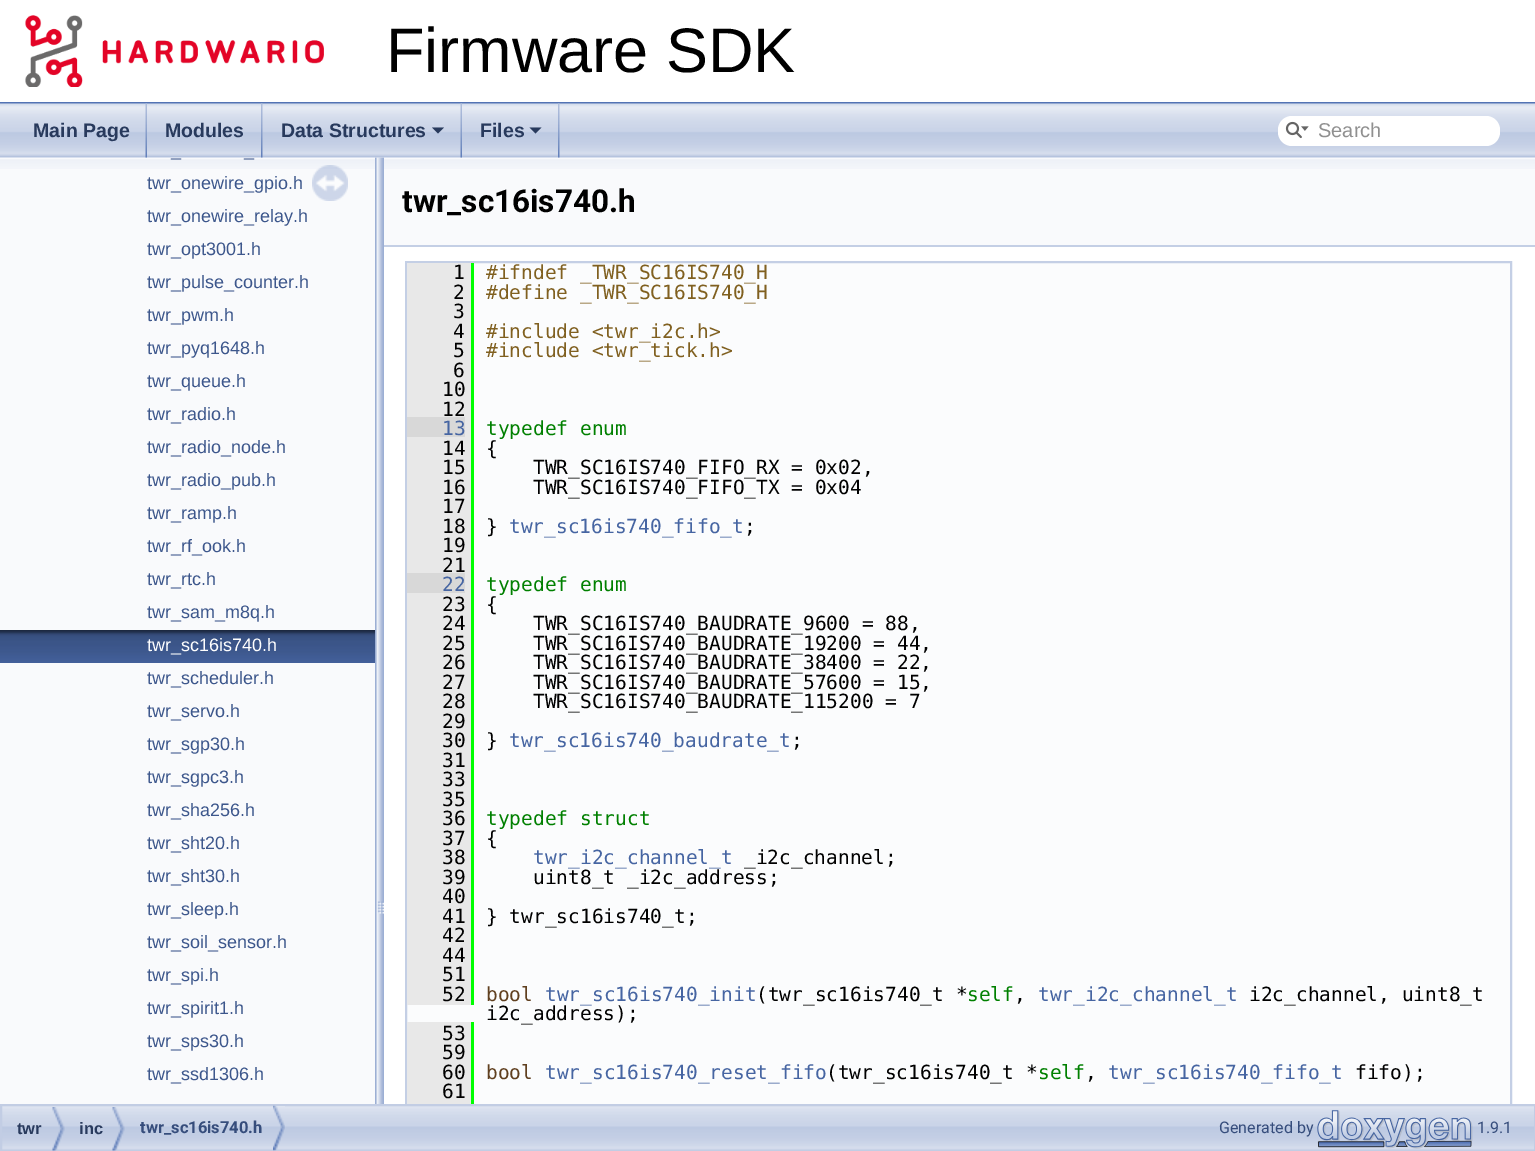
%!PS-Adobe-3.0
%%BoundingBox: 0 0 1535 1151
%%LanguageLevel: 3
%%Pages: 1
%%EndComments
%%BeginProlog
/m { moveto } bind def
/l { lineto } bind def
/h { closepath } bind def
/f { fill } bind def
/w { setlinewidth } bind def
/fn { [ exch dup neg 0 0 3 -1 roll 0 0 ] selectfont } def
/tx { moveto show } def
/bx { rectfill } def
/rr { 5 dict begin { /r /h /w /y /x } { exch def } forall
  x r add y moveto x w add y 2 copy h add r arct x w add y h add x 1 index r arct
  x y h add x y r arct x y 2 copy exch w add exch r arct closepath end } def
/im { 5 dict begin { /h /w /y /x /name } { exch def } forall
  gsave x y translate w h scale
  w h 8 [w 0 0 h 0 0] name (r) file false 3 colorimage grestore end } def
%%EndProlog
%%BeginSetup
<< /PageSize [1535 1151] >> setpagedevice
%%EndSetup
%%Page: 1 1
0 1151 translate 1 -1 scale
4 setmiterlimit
1 setgray
0 0 1535 1151 bx
0.325 0.451 0.706 setrgbcolor
0 102 1535 2 bx
(image0.raw) 25 15 299 72 im
/LiberationSans-Regular 63 fn
0 setgray
(Firmware SDK) 386 72 tx
(image8.raw) 375 157 9 947 im
(image1.raw) 0 103 1535 55 im
(image2.raw) 145 103 2 55 im
/LiberationSans-Bold 19.5 fn
0.157 0.227 0.365 setrgbcolor
(Main Page) 33 137 tx
(image3.raw) 261 103 2 55 im
(Modules) 165 137 tx
(image2.raw) 460 103 2 55 im
(Data Structures) 281 137 tx
432 127.5 m 444 127.5 l 438 133.5 l h f
(image3.raw) 558 103 2 55 im
(Files) 480 137 tx
529.5 127.5 m 541.5 127.5 l 535.5 133.5 l h f
1 setgray
1278 116 222 30 14 rr f
(image4.raw) 1285 121 24 18 im
/LiberationSans-Regular 20 fn
0.565 setgray
(Search) 1318 137 tx
0.976 0.98 0.988 setrgbcolor
0 158 375 946 bx
(image5.raw) 0 159 375 10 im
/LiberationSans-Regular 18 fn
0.239 0.341 0.549 setrgbcolor
(_) 171 156 tx
(_) 244 156 tx
(twr_onewire_gpio.h) 147 189 tx
(twr_onewire_relay.h) 147 222 tx
(twr_opt3001.h) 147 255 tx
(twr_pulse_counter.h) 147 288 tx
(twr_pwm.h) 147 321 tx
(twr_pyq1648.h) 147 354 tx
(twr_queue.h) 147 387 tx
(twr_radio.h) 147 420 tx
(twr_radio_node.h) 147 453 tx
(twr_radio_pub.h) 147 486 tx
(twr_ramp.h) 147 519 tx
(twr_rf_ook.h) 147 552 tx
(twr_rtc.h) 147 585 tx
(twr_sam_m8q.h) 147 618 tx
(image6.raw) 0 630 375 33 im
1 setgray
(twr_sc16is740.h) 147 651 tx
0.239 0.341 0.549 setrgbcolor
(twr_scheduler.h) 147 684 tx
(twr_servo.h) 147 717 tx
(twr_sgp30.h) 147 750 tx
(twr_sgpc3.h) 147 783 tx
(twr_sha256.h) 147 816 tx
(twr_sht20.h) 147 849 tx
(twr_sht30.h) 147 882 tx
(twr_sleep.h) 147 915 tx
(twr_soil_sensor.h) 147 948 tx
(twr_spi.h) 147 981 tx
(twr_spirit1.h) 147 1014 tx
(twr_sps30.h) 147 1047 tx
(twr_ssd1306.h) 147 1080 tx
(image7.raw) 312 165 36 36 im
0.976 0.98 0.988 setrgbcolor
384 158 1151 87 bx
(image9.raw) 384 159 1151 10 im
0.769 0.812 0.898 setrgbcolor
384 245 1151 2 bx
/Roboto-Bold 31.5 fn
0 setgray
(twr_sc16is740.h) 402 212 tx
0.984 0.988 0.992 setrgbcolor
407 263 1103 841 bx
0.769 0.812 0.898 setrgbcolor
2 w
406 262 1105 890 rectstroke
0.91 setgray
407 263 64 154 bx
/DejaVuSansMono-Regular 19.5 fn
0 setgray
(1) 453 279 tx
0 1 0 setrgbcolor
471 263 3 742 bx
0.502 0.376 0.125 setrgbcolor
(#ifndef _TWR_SC16IS740_H) 486 279 tx
0 setgray
(2) 453 299 tx
0.502 0.376 0.125 setrgbcolor
(#define _TWR_SC16IS740_H) 486 299 tx
0 setgray
(3) 453 318 tx
(4) 453 338 tx
0.502 0.376 0.125 setrgbcolor
(#include <twr_i2c.h>) 486 338 tx
0 setgray
(5) 453 357 tx
0.502 0.376 0.125 setrgbcolor
(#include <twr_tick.h>) 486 357 tx
0 setgray
(6) 453 377 tx
(10) 442 396 tx
(12) 442 416 tx
0.847 setgray
407 417 58 20 bx
0.275 0.396 0.635 setrgbcolor
(13) 442 435 tx
0.91 setgray
465 417 6 20 bx
0 0.502 0 setrgbcolor
(typedef enum) 486 435 tx
0.91 setgray
407 437 64 136 bx
0 setgray
(14) 442 455 tx
({) 486 455 tx
(15) 442 474 tx
(TWR_SC16IS740_FIFO_RX = 0x02,) 533 474 tx
(16) 442 494 tx
(TWR_SC16IS740_FIFO_TX = 0x04) 533 494 tx
(17) 442 513 tx
(18) 442 533 tx
(}) 486 533 tx
0.275 0.396 0.635 setrgbcolor
(twr_sc16is740_fifo_t) 509 533 tx
0 setgray
(;) 744 533 tx
(19) 442 552 tx
(21) 442 572 tx
0.847 setgray
407 573 58 20 bx
0.275 0.396 0.635 setrgbcolor
(22) 442 591 tx
0.91 setgray
465 573 6 20 bx
0 0.502 0 setrgbcolor
(typedef enum) 486 591 tx
0.91 setgray
407 593 64 412 bx
0 setgray
(23) 442 611 tx
({) 486 611 tx
(24) 442 630 tx
(TWR_SC16IS740_BAUDRATE_9600 = 88,) 533 630 tx
(25) 442 650 tx
(TWR_SC16IS740_BAUDRATE_19200 = 44,) 533 650 tx
(26) 442 669 tx
(TWR_SC16IS740_BAUDRATE_38400 = 22,) 533 669 tx
(27) 442 689 tx
(TWR_SC16IS740_BAUDRATE_57600 = 15,) 533 689 tx
(28) 442 708 tx
(TWR_SC16IS740_BAUDRATE_115200 = 7) 533 708 tx
(29) 442 728 tx
(30) 442 747 tx
(}) 486 747 tx
0.275 0.396 0.635 setrgbcolor
(twr_sc16is740_baudrate_t) 509 747 tx
0 setgray
(;) 791 747 tx
(31) 442 767 tx
(33) 442 786 tx
(35) 442 806 tx
(36) 442 825 tx
0 0.502 0 setrgbcolor
(typedef struct) 486 825 tx
0 setgray
(37) 442 845 tx
({) 486 845 tx
(38) 442 864 tx
0.275 0.396 0.635 setrgbcolor
(twr_i2c_channel_t) 533 864 tx
0 setgray
(_i2c_channel;) 744 864 tx
(39) 442 884 tx
(uint8_t _i2c_address;) 533 884 tx
(40) 442 903 tx
(41) 442 923 tx
(} twr_sc16is740_t;) 486 923 tx
(42) 442 942 tx
(44) 442 962 tx
(51) 442 981 tx
(52) 442 1001 tx
0.376 0.251 0.125 setrgbcolor
(bool) 486 1001 tx
0.275 0.396 0.635 setrgbcolor
(twr_sc16is740_init) 545 1001 tx
0 setgray
(\(twr_sc16is740_t *) 756 1001 tx
0 0.502 0 setrgbcolor
(self) 967 1001 tx
0 setgray
(,) 1014 1001 tx
0.275 0.396 0.635 setrgbcolor
(twr_i2c_channel_t) 1038 1001 tx
0 setgray
(i2c_channel, uint8_t) 1249 1001 tx
(i2c_address\);) 486 1020 tx
0.91 setgray
407 1022 64 78 bx
0 setgray
(53) 442 1040 tx
0 1 0 setrgbcolor
471 1022 3 81 bx
0 setgray
(59) 442 1059 tx
(60) 442 1079 tx
0.376 0.251 0.125 setrgbcolor
(bool) 486 1079 tx
0.275 0.396 0.635 setrgbcolor
(twr_sc16is740_reset_fifo) 545 1079 tx
0 setgray
(\(twr_sc16is740_t *) 826 1079 tx
0 0.502 0 setrgbcolor
(self) 1038 1079 tx
0 setgray
(,) 1085 1079 tx
0.275 0.396 0.635 setrgbcolor
(twr_sc16is740_fifo_t) 1108 1079 tx
0 setgray
(fifo\);) 1355 1079 tx
(61) 442 1098 tx
0.91 setgray
407 1100 67 4 bx
0 1 0 setrgbcolor
471 1100 3 4 bx
(image10.raw) 2 1106 1532 44 im
0.761 0.804 0.894 setrgbcolor
1 1105 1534 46 rectstroke
(image11.raw) 52 1107 13 44 im
/LiberationSans-Bold 16.5 fn
0.157 0.227 0.365 setrgbcolor
(twr) 17 1134 tx
(image11.raw) 112 1107 13 44 im
(inc) 79 1134 tx
(image12.raw) 273 1105 12 46 im
/Roboto-Bold 16.5 fn
0.212 0.302 0.486 setrgbcolor
(twr_sc16is740.h) 140 1133 tx
/Roboto-Regular 16 fn
(Generated by) 1219 1133 tx
(image13.raw) 1317 1110 156 39 im
(1.9.1) 1477 1133 tx
showpage
%%EOF
